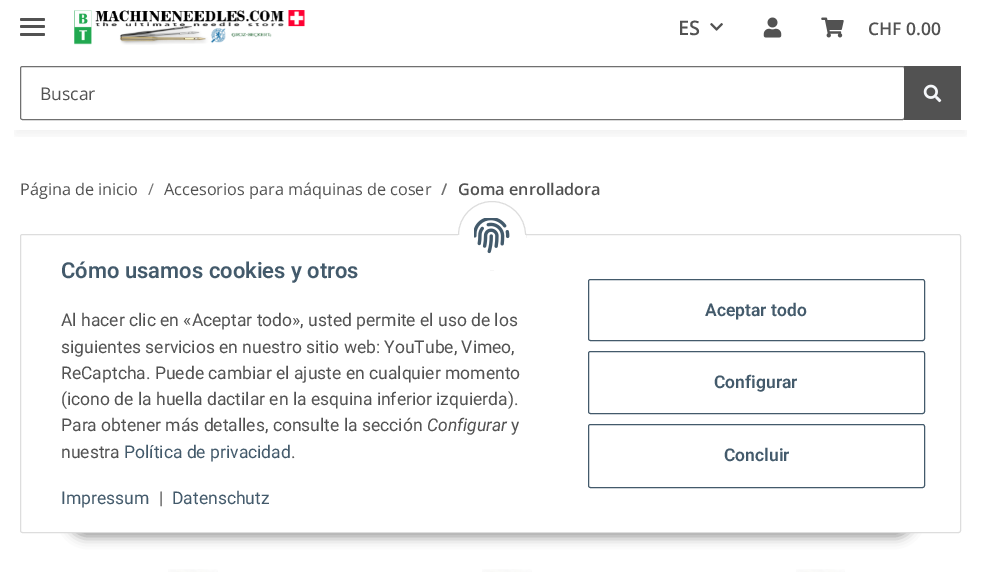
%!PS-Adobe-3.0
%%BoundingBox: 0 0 981 572
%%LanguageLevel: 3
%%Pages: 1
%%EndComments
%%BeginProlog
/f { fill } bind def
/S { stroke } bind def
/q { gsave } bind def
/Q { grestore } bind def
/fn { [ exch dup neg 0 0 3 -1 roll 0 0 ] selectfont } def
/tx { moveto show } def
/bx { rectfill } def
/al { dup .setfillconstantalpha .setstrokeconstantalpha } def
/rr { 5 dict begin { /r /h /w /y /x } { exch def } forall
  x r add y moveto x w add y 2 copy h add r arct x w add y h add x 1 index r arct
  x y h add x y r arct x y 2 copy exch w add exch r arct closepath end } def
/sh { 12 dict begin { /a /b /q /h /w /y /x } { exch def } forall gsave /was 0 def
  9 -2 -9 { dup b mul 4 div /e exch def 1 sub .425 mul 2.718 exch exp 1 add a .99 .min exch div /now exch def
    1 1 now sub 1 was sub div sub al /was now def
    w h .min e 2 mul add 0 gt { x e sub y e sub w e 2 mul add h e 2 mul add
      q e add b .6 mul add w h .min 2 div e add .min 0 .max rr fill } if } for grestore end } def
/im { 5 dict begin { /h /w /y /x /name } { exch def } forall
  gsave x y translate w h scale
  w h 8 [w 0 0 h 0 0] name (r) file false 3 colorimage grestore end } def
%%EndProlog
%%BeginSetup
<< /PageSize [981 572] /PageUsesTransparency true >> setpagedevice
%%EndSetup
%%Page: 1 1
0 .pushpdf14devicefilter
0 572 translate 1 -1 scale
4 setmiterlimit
1 setgray
0 0 981 572 bx
q
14 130 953 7 rectclip
0 setgray
15 35 951 100 0 5.5 0.06 sh
Q
0.322 setgray
20 25 25 3 1.5 rr f
20 18 25 3 1.5 rr f
20 33 25 3 1.5 rr f
(image0.raw) 74 10 231 35 im
/OpenSans-SemiBold 20 fn
(ES) 678 35 tx
(image1.raw) 710 23 13 8 im
(image2.raw) 763 17 19 21 im
(image3.raw) 821 17 23 21 im
/OpenSans-SemiBold 17.5 fn
(CHF 0.00) 868 35 tx
0.439 setgray
20.5 66.5 884 53 2 rr S
/OpenSans-Regular 17.5 fn
0.322 setgray
(Buscar) 40 100 tx
904 66 57 54 bx
(image4.raw) 923 84 19 19 im
/OpenSans-Regular 16.25 fn
(Página de inicio) 20 195 tx
0.439 setgray
(/) 148 195 tx
0.322 setgray
(Accesorios para máquinas de coser) 164 195 tx
/OpenSans-SemiBold 16.25 fn
0.439 setgray
(/) 441 195 tx
0.322 setgray
(Goma enrolladora) 458 195 tx
(image5.raw) 168 569 50 3 im
(image6.raw) 482 569 50 3 im
(image7.raw) 796 569 49 3 im
0 setgray
69 496 844 40 20 6 0.45 sh
1 setgray
20.5 234.5 940 298 2 rr q f Q
0.867 setgray
S
1 setgray
458.5 201.5 67 68 33.5 rr q f Q
0.867 setgray
S
1 setgray
458 235 68 35 bx
(image8.raw) 474 218 36 36 im
/Roboto-SemiBold 22 fn
0.263 0.353 0.42 setrgbcolor
(Cómo usamos cookies y otros) 61 278 tx
/Roboto-Regular 17.5 fn
0.322 setgray
(Al hacer clic en «Aceptar todo», usted permite el uso de los) 61 326 tx
(siguientes servicios en nuestro sitio web: YouTube, Vimeo,) 61 353 tx
(ReCaptcha. Puede cambiar el ajuste en cualquier momento) 61 379 tx
(\(icono de la huella dactilar en la esquina inferior izquierda\).) 61 405 tx
(Para obtener más detalles, consulte la sección) 61 431 tx
/Roboto-Italic 17.5 fn
(Configurar) 427 431 tx
/Roboto-Regular 17.5 fn
(y) 511 431 tx
(nuestra) 61 458 tx
0.263 0.353 0.42 setrgbcolor
(Política de privacidad) 124 458 tx
0.322 setgray
(.) 291 458 tx
0.263 0.353 0.42 setrgbcolor
(Impressum) 61 504 tx
0.322 setgray
(|) 159 504 tx
0.263 0.353 0.42 setrgbcolor
(Datenschutz) 172 504 tx
588.5 279.5 336 61 2 rr S
/Roboto-SemiBold 17.5 fn
(Aceptar todo) 705 316 tx
588.5 351.5 336 62 2 rr S
(Configurar) 714 388 tx
588.5 424.5 336 63 2 rr S
(Concluir) 724 461 tx
.poppdf14devicefilter showpage
%%EOF
